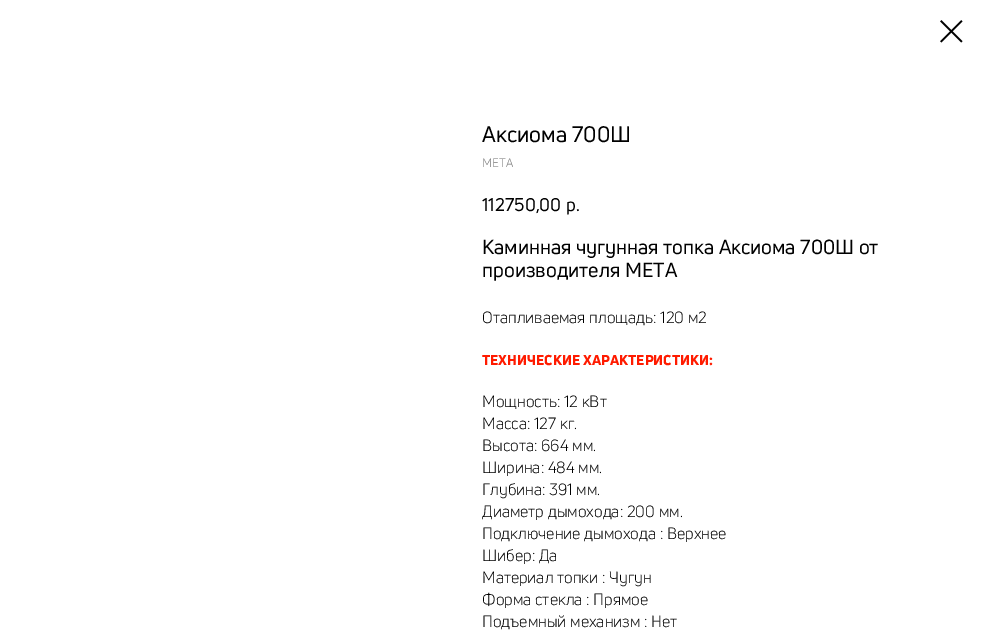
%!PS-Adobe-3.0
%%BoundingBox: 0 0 983 630
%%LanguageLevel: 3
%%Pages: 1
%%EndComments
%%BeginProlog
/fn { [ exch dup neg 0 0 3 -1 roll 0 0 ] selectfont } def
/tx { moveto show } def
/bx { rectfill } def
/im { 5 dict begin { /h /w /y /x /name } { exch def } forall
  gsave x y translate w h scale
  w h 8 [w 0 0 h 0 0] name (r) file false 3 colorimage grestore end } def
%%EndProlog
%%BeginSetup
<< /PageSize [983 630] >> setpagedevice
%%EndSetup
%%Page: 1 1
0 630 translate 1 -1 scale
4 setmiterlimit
1 setgray
0 0 983 630 bx
(image0.raw) 940 20 23 23 im
/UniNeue-Regular 22 fn
0 setgray
(Аксиома 700Ш) 482 142 tx
/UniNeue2-Regular 12 fn
0.467 setgray
(МЕТА) 482 167 tx
/UniNeue-Regular 18 fn
0 setgray
(112750,00) 482 211 tx
(р.) 566 211 tx
/UniNeue-Regular 20 fn
(Каминная чугунная топка Аксиома 700Ш от) 482 254 tx
(производителя МЕТА) 482 277 tx
/UniNeue2-Regular 16 fn
(Отапливаемая площадь: 120 м2) 482 323 tx
/UniNeue-Black 14 fn
1 0.106 0 setrgbcolor
(ТЕХНИЧЕСКИЕ ХАРАКТЕРИСТИКИ:) 482 365 tx
/UniNeue2-Regular 16 fn
0 setgray
(Мощность: 12 кВт) 482 407 tx
(Масса: 127 кг.) 482 429 tx
(Высота: 664 мм.) 482 451 tx
(Ширина: 484 мм.) 482 473 tx
(Глубина: 391 мм.) 482 495 tx
(Диаметр дымохода: 200 мм.) 482 517 tx
(Подключение дымохода : Верхнее) 482 539 tx
(Шибер: Да) 482 561 tx
(Материал топки : Чугун) 482 583 tx
(Форма стекла : Прямое) 482 605 tx
(Подъемный механизм : Нет) 482 627 tx
showpage
%%EOF
